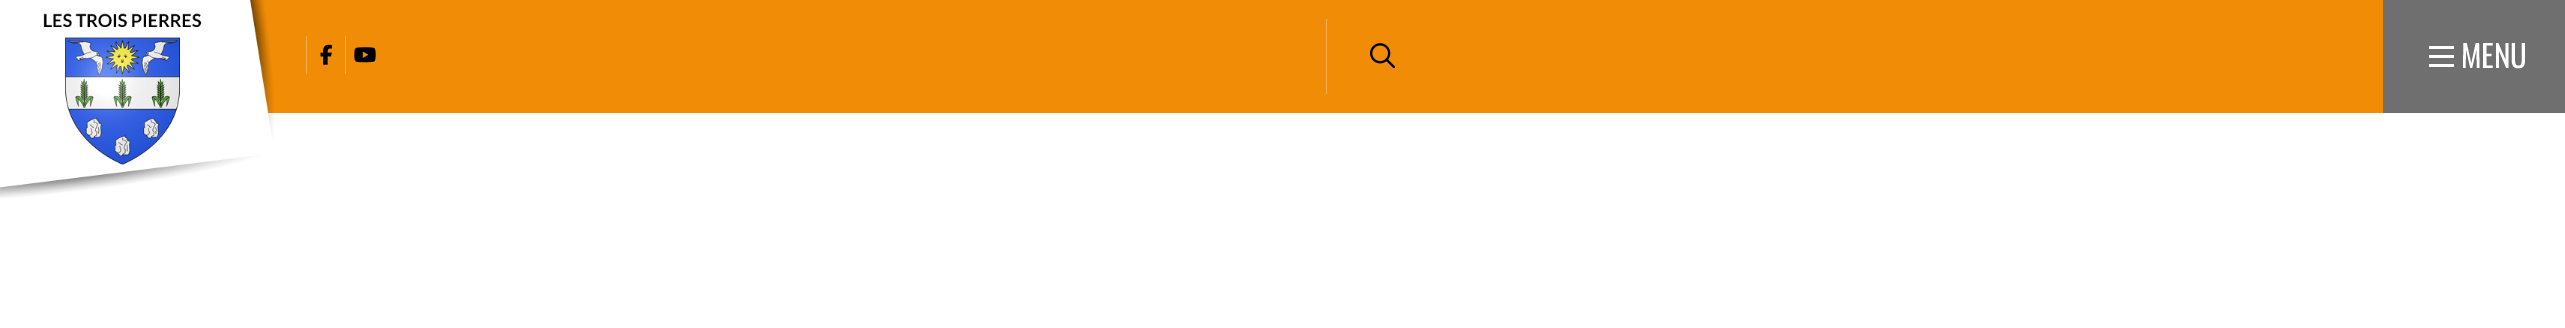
%!PS-Adobe-3.0
%%BoundingBox: 0 0 2565 328
%%LanguageLevel: 3
%%Pages: 1
%%EndComments
%%BeginProlog
/fn { [ exch dup neg 0 0 3 -1 roll 0 0 ] selectfont } def
/tx { moveto show } def
/bx { rectfill } def
/im { 5 dict begin { /h /w /y /x /name } { exch def } forall
  gsave x y translate w h scale
  w h 8 [w 0 0 h 0 0] name (r) file false 3 colorimage grestore end } def
%%EndProlog
%%BeginSetup
<< /PageSize [2565 328] >> setpagedevice
%%EndSetup
%%Page: 1 1
0 328 translate 1 -1 scale
4 setmiterlimit
1 setgray
0 0 2565 328 bx
0.941 0.549 0.02 setrgbcolor
249 0 2134 113 bx
(image0.raw) 0 0 274 198 im
0.961 0.686 0.314 setrgbcolor
306 36 1 38 bx
(image1.raw) 320 44 12 21 im
345 36 1 38 bx
(image2.raw) 354 47 22 16 im
1326 19 1 75 bx
(image3.raw) 1370 43 25 26 im
0.439 0.435 0.435 setrgbcolor
2383 0 182 113 bx
1 setgray
2429 46 25 3 bx
2429 55 25 3 bx
2429 64 25 3 bx
/Oswald-Regular 31 fn
(MENU) 2461 68 tx
showpage
%%EOF
